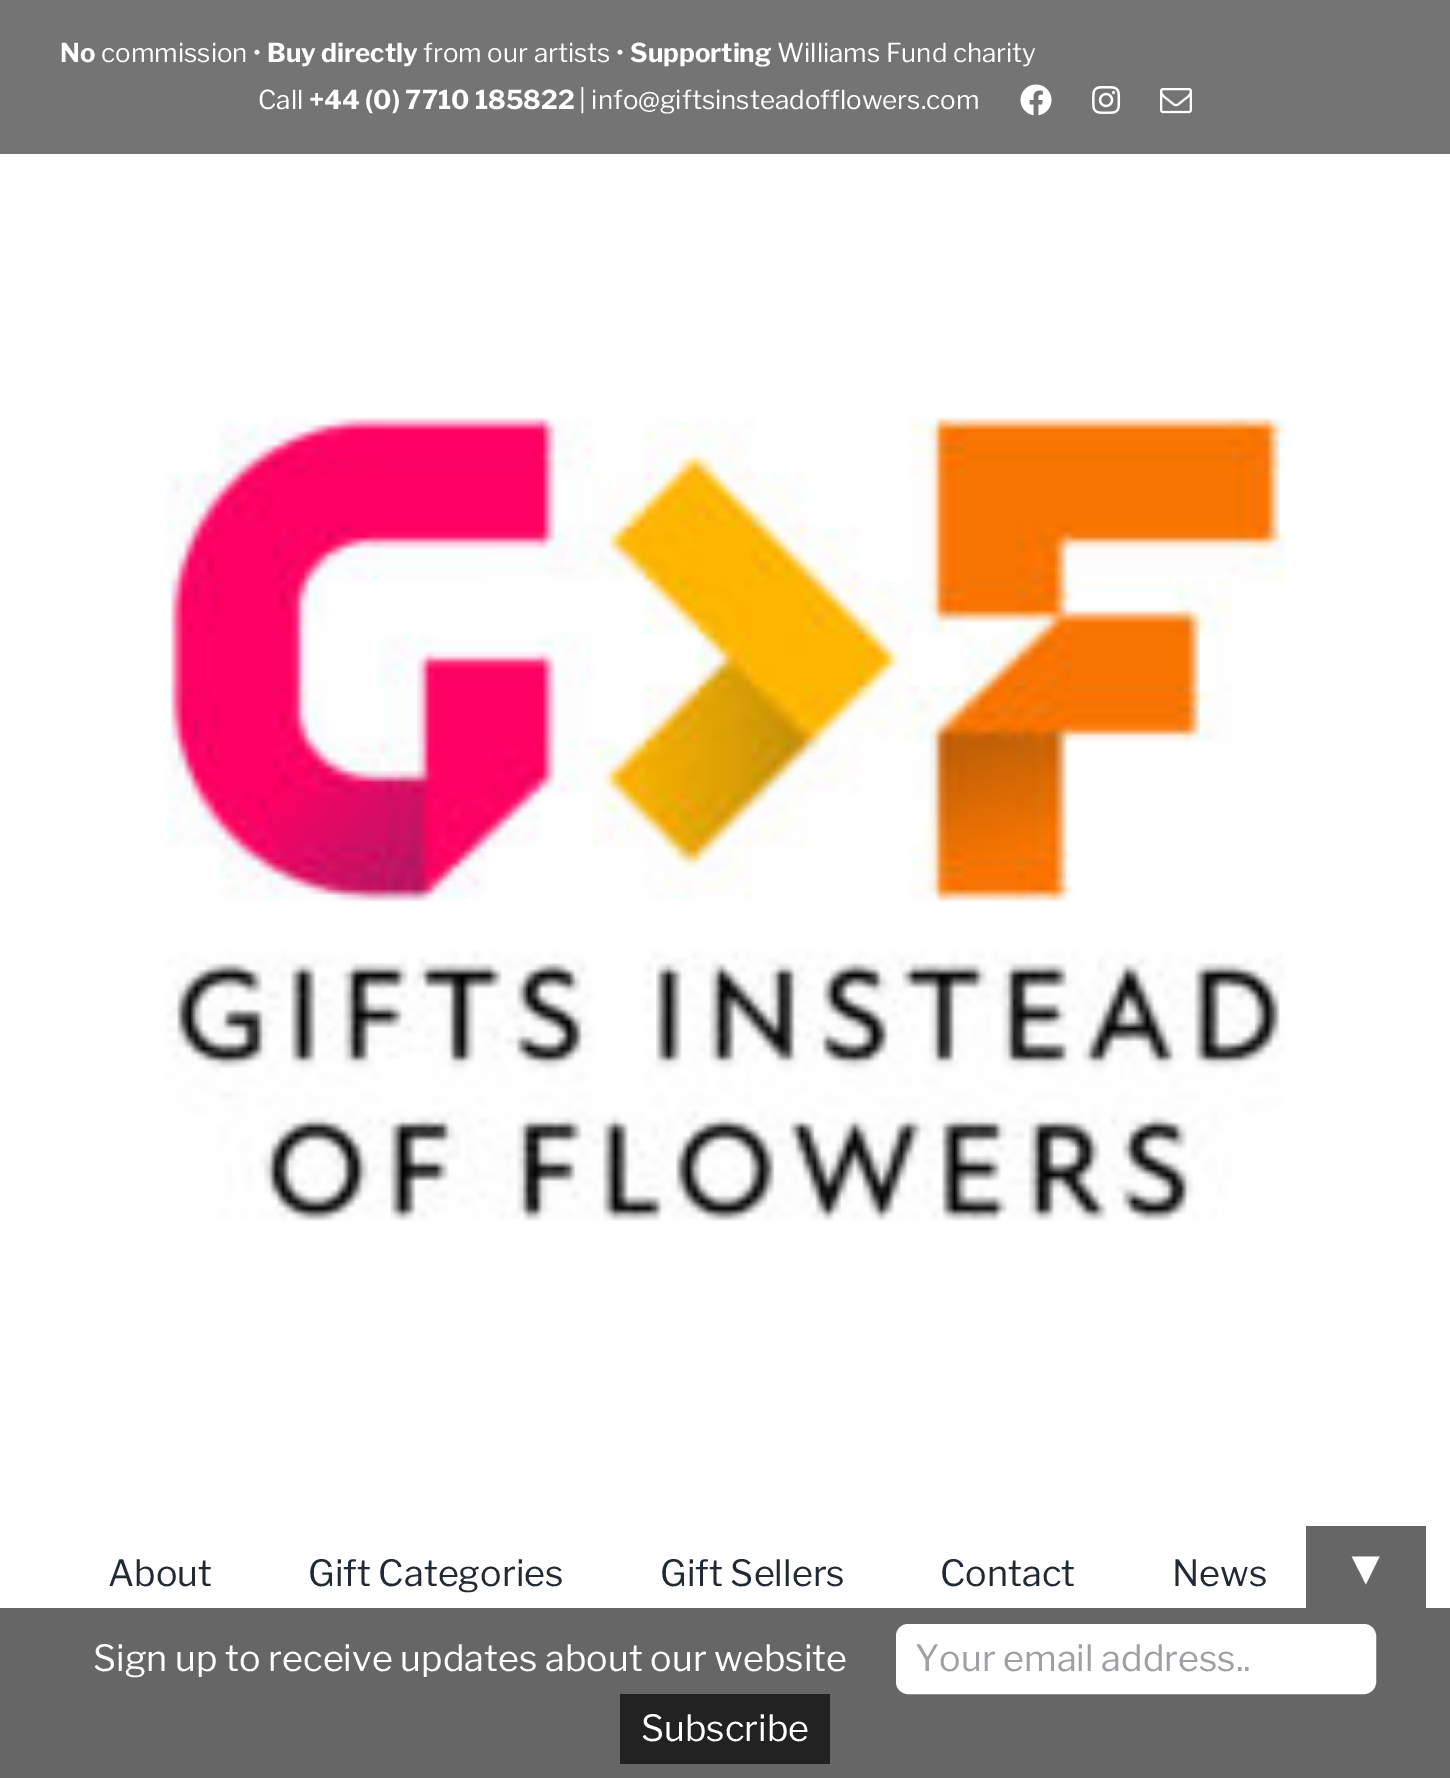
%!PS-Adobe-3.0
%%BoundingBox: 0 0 1450 1778
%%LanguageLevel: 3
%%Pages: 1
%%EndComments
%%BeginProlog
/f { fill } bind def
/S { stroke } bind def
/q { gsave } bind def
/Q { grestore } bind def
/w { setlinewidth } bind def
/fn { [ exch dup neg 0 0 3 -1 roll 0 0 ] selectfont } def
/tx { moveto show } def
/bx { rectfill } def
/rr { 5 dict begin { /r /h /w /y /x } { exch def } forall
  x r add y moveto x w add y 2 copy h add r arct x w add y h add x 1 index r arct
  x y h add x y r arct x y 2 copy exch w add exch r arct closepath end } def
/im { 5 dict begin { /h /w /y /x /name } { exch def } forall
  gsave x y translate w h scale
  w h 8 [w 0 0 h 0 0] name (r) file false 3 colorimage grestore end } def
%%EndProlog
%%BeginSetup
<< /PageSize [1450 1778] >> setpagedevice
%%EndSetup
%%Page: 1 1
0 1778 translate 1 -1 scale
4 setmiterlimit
1 setgray
0 0 1450 1778 bx
0.455 setgray
0 0 1450 154 bx
/LibreFranklin-Bold 26 fn
1 setgray
(No) 60 62 tx
/LibreFranklin-Regular 26 fn
(commission •) 101 62 tx
/LibreFranklin-Bold 26 fn
(Buy directly) 267 62 tx
/LibreFranklin-Regular 26 fn
(from our artists •) 423 62 tx
/LibreFranklin-Bold 26 fn
(Supporting) 630 62 tx
/LibreFranklin-Regular 26 fn
(Williams Fund charity) 777 62 tx
(Call) 258 109 tx
/LibreFranklin-Bold 26 fn
(+44 \(0\) 7710 185822) 309 109 tx
/LibreFranklin-Regular 26 fn
(| info@giftsinsteadofflowers.com) 579 109 tx
(image0.raw) 1020 84 32 32 im
(image1.raw) 1092 86 29 28 im
(image2.raw) 1160 88 32 26 im
(image3.raw) 165 417 1121 804 im
/LibreFranklin-Regular 36 fn
0.129 0.161 0.204 setrgbcolor
(About) 108 1586 tx
(Gift Categories) 308 1586 tx
(Gift Sellers) 660 1586 tx
(Contact) 940 1586 tx
(News) 1172 1586 tx
0.4 setgray
1306 1526 120 82 bx
/LiberationSerif-Regular 48 fn
1 setgray
(▼) 1342 1584 tx
0.4 setgray
0 1608 1450 170 bx
/LibreFranklin-Regular 36 fn
1 setgray
(Sign up to receive updates about our website) 93 1671 tx
897 1625 478 68 11 rr q f Q
2 w
S
0.62 0.627 0.643 setrgbcolor
(Your email address..) 915 1671 tx
0.133 setgray
620 1694 210 70 bx
1 setgray
(Subscribe) 641 1741 tx
showpage
%%EOF
